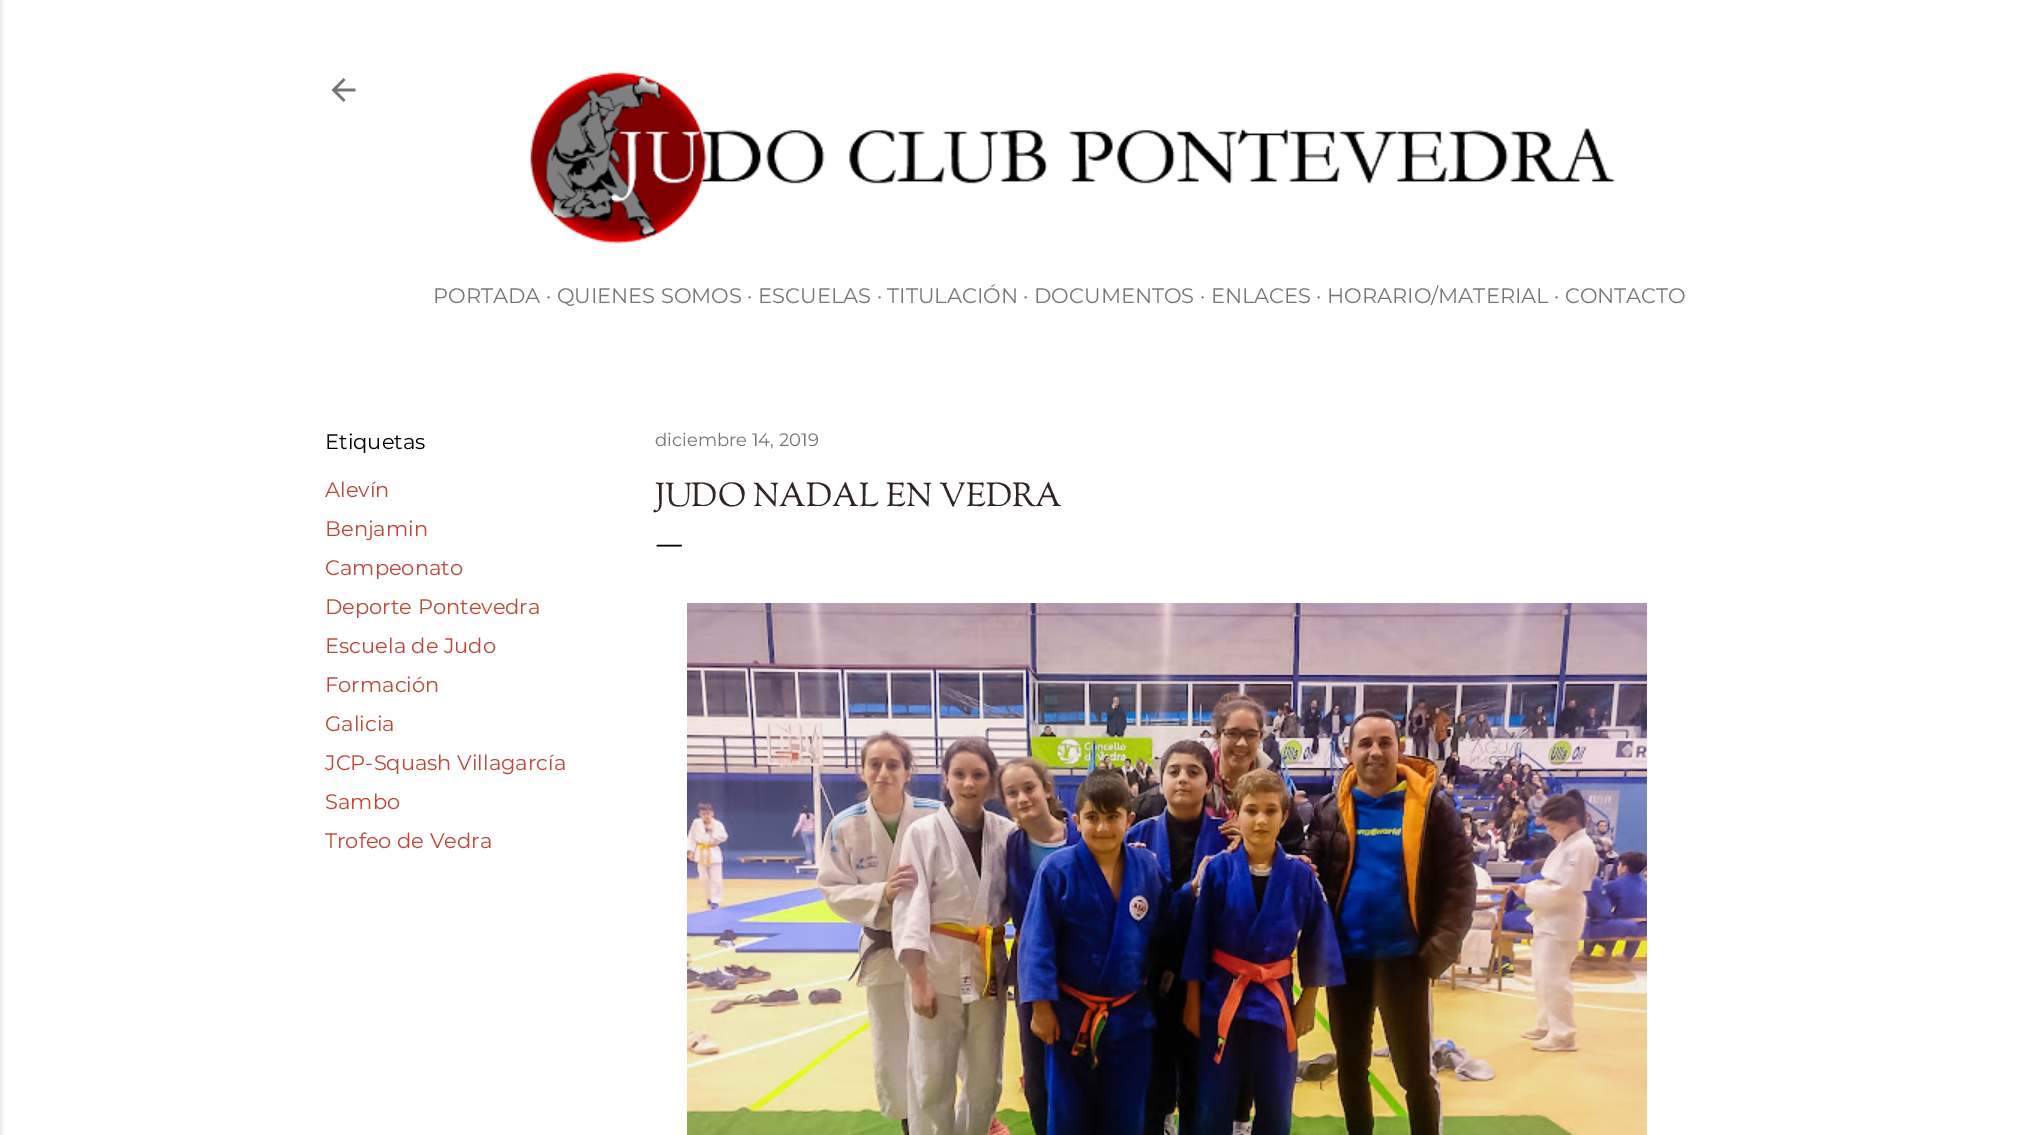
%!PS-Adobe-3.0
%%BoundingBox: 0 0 2032 1135
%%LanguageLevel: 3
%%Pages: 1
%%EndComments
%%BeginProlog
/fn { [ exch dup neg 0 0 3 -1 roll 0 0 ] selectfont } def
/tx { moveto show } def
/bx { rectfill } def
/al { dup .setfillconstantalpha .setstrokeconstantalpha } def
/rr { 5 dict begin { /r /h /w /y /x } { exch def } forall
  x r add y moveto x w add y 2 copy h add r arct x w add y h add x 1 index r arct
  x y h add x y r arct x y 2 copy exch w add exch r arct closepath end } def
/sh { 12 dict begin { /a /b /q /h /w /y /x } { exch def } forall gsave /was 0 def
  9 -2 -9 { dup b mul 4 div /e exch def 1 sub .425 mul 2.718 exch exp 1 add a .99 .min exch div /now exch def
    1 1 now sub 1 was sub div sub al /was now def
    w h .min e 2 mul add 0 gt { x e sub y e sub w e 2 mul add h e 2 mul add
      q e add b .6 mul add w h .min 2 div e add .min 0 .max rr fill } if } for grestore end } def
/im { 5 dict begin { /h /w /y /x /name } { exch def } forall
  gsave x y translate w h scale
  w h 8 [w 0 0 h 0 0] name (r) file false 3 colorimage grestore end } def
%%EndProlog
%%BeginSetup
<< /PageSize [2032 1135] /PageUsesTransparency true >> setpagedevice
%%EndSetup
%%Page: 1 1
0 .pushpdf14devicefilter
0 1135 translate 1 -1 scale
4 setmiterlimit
1 setgray
0 0 2032 1135 bx
0 setgray
-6 0 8 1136 0 2 0.1 sh
(image0.raw) 331 78 25 24 im
(image1.raw) 530 72 1085 172 im
/Montserrat-Regular 21 fn
0.459 setgray
(PORTADA · QUIENES SOMOS · ESCUELAS · TITULACIÓN · DOCUMENTOS · ENLACES · HORARIO/MATERIAL · CONTACTO) 433 303 tx
0 setgray
(Etiquetas) 325 449 tx
0.745 0.278 0.216 setrgbcolor
(Alevín) 325 497 tx
(Benjamin) 325 536 tx
(Campeonato) 325 575 tx
(Deporte Pontevedra) 325 614 tx
(Escuela de Judo) 325 653 tx
(Formación) 325 692 tx
(Galicia) 325 731 tx
(JCP-Squash Villagarcía) 325 770 tx
(Sambo) 325 809 tx
(Trofeo de Vedra) 325 848 tx
/Montserrat-Regular 18 fn
0.459 setgray
(diciembre 14, 2019) 655 446 tx
/SortsMillGoudy-Regular 33 fn
0.184 0.145 0.137 setrgbcolor
(JUDO NADAL EN VEDRA) 655 506 tx
/EBGaramond-Regular 30 fn
0 setgray
(—) 655 552 tx
(image2.raw) 687 603 960 532 im
.poppdf14devicefilter showpage
%%EOF
